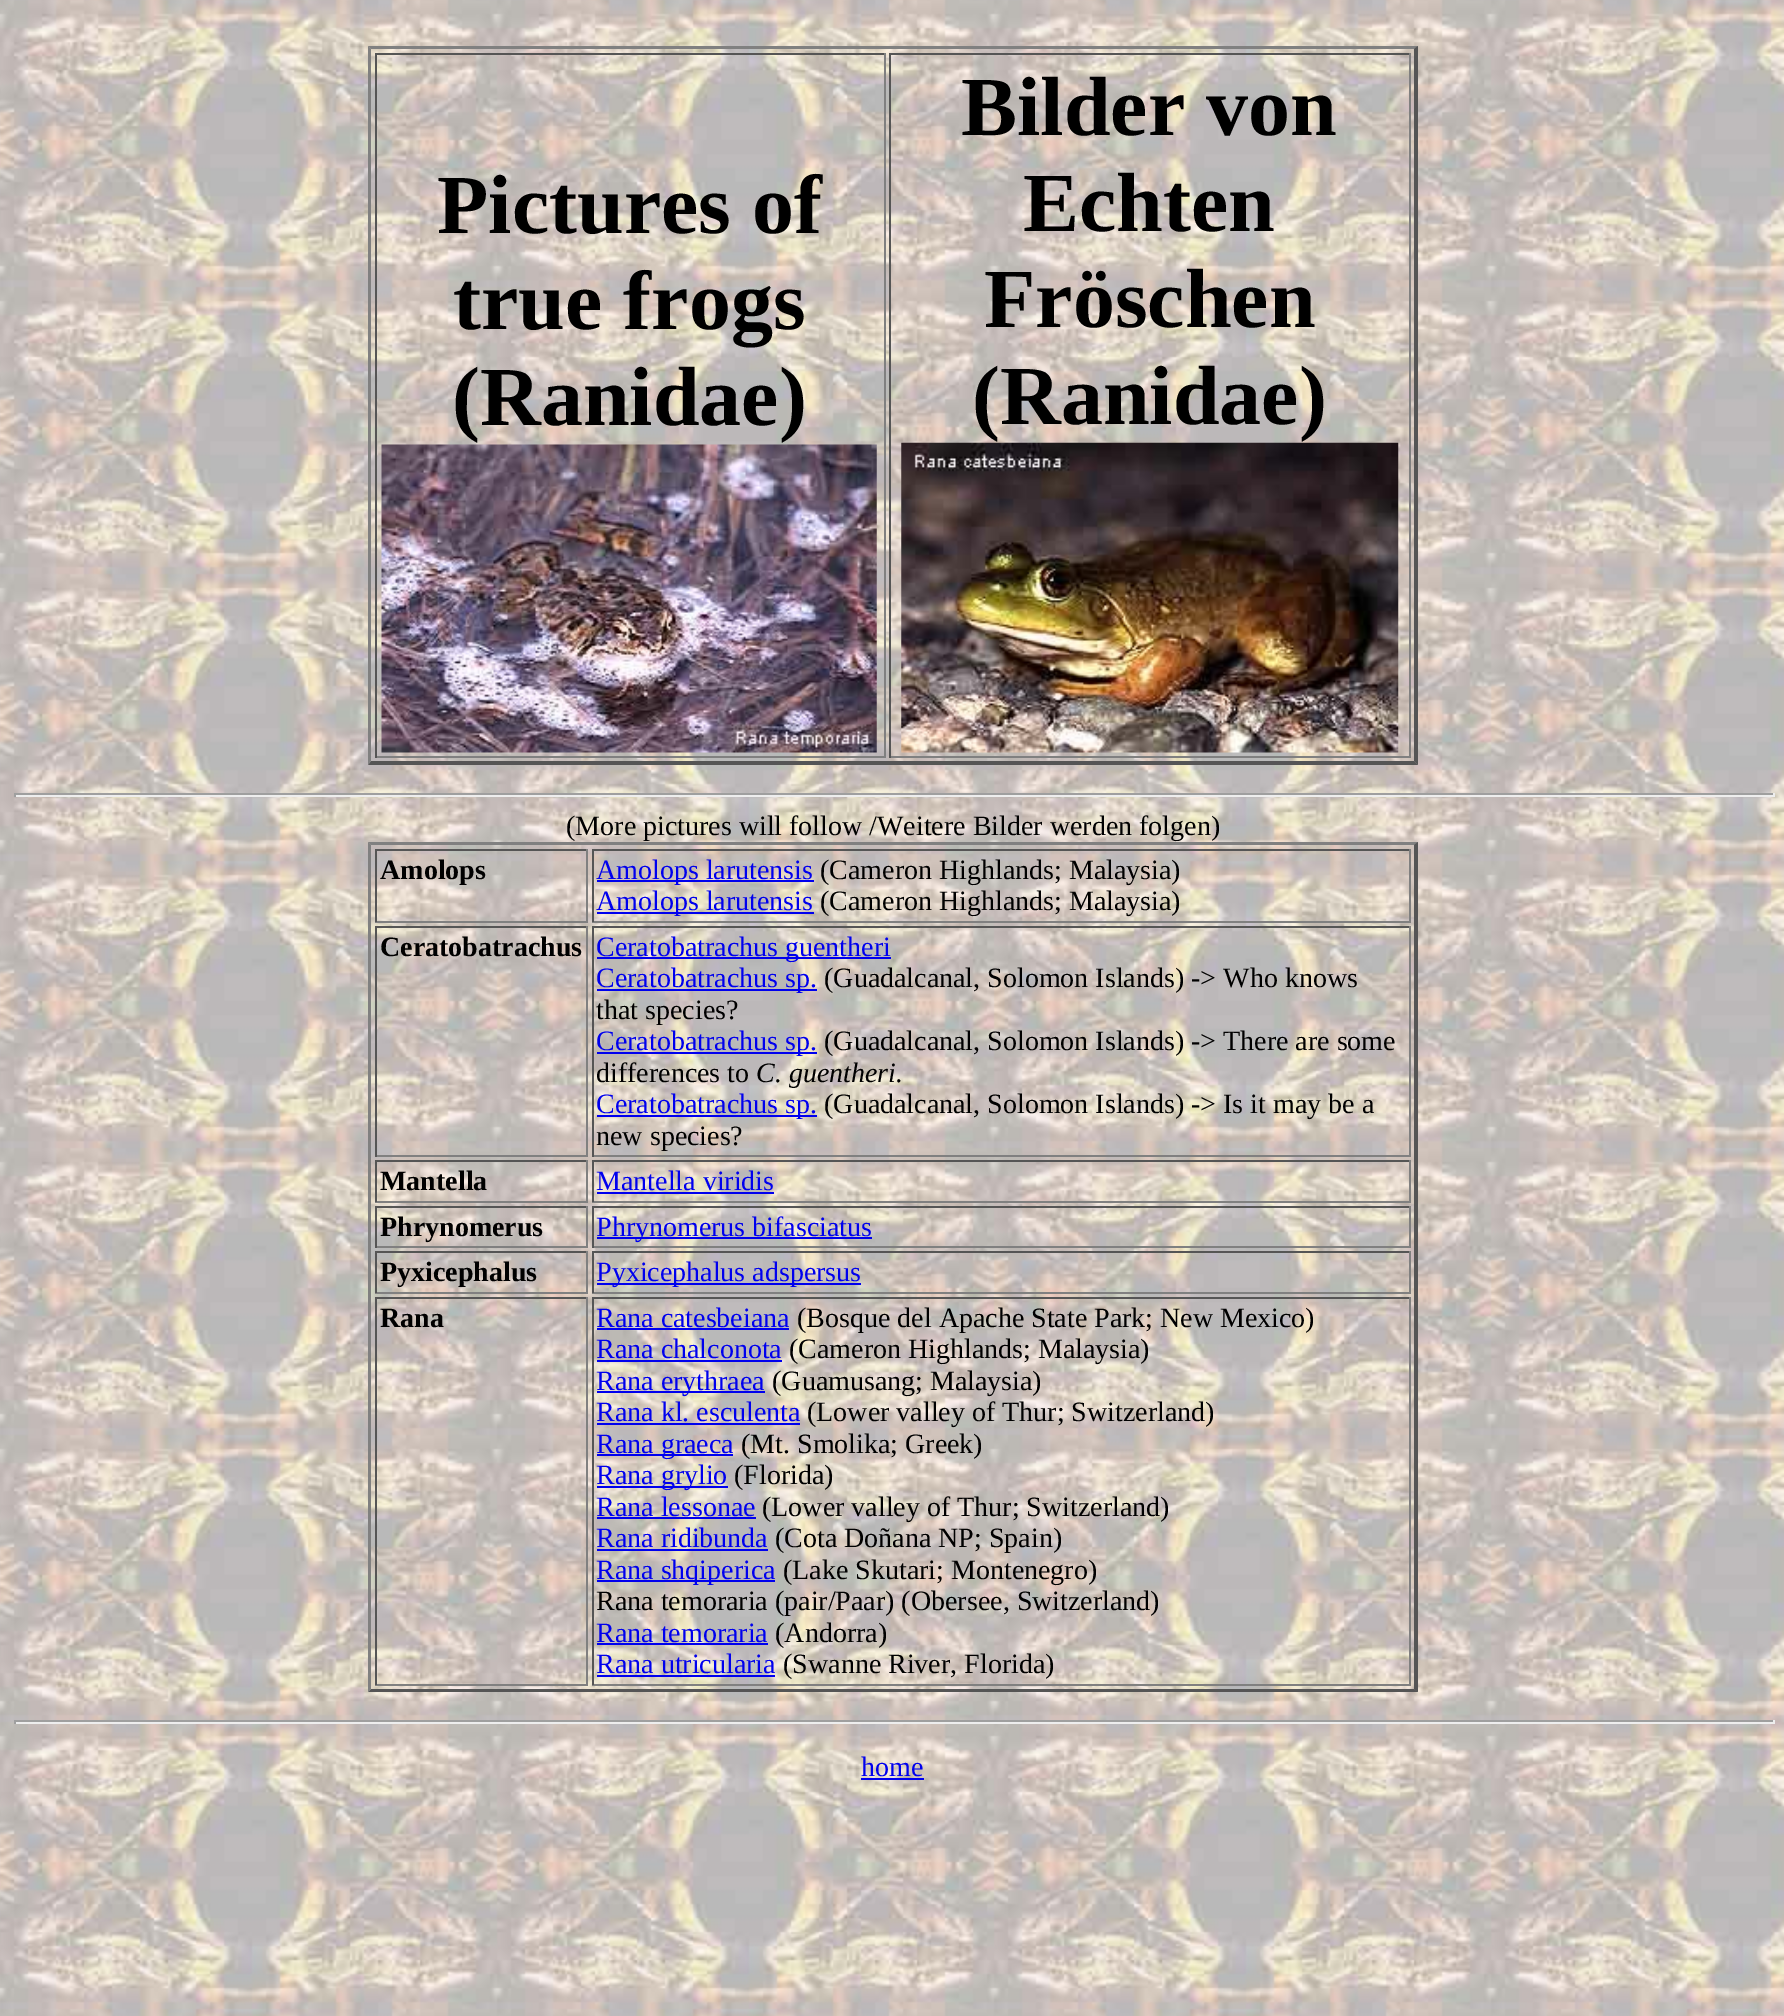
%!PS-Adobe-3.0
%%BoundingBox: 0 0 1784 2016
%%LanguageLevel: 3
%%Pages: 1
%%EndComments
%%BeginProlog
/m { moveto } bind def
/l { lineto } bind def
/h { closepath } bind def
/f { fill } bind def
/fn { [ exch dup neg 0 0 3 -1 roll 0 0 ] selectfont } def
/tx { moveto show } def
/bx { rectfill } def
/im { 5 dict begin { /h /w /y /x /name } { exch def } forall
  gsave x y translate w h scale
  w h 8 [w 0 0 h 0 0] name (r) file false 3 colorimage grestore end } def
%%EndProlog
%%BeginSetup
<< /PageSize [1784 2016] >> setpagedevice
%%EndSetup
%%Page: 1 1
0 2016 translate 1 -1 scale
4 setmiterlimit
1 setgray
0 0 1784 2016 bx
(image0.raw) 0 0 1784 2016 im
0.502 setgray
368 46 m 1418 46 l 1414 49 l 371 49 l h f
0.333 setgray
1418 46 m 1418 765 l 1414 761 l 1414 49 l h f
1418 765 m 368 765 l 371 761 l 1414 761 l h f
0.502 setgray
368 765 m 368 46 l 371 49 l 371 761 l h f
0.333 setgray
375 53 511 2 bx
0.502 setgray
884 53 2 705 bx
375 756 511 2 bx
0.333 setgray
375 53 2 705 bx
/LiberationSerif-Bold 84 fn
0 setgray
(Pictures of) 437 233 tx
(true frogs) 453 329 tx
(\(Ranidae\)) 452 425 tx
(image1.raw) 381 444 496 309 im
0.333 setgray
889 53 522 2 bx
0.502 setgray
1409 53 2 705 bx
889 756 522 2 bx
0.333 setgray
889 53 2 705 bx
0 setgray
(Bilder von) 961 135 tx
(Echten) 1023 231 tx
(Fröschen) 984 327 tx
(\(Ranidae\)) 972 424 tx
(image2.raw) 901 442 498 311 im
0.624 setgray
14 793 1761 2 bx
0.933 setgray
1773 793 2 4 bx
14 795 1761 2 bx
0.624 setgray
14 793 2 4 bx
/LiberationSerif-Regular 28 fn
0 setgray
(\(More pictures will follow /Weitere Bilder werden folgen\)) 566 835 tx
0.502 setgray
368 842 m 1418 842 l 1414 845 l 371 845 l h f
0.333 setgray
1418 842 m 1418 1692 l 1414 1689 l 1414 845 l h f
1418 1692 m 368 1692 l 371 1689 l 1414 1689 l h f
0.502 setgray
368 1692 m 368 842 l 371 845 l 371 1689 l h f
0.333 setgray
375 849 213 2 bx
0.502 setgray
586 849 2 73 bx
375 921 213 2 bx
0.333 setgray
375 849 2 73 bx
/LiberationSerif-Bold 28 fn
0 setgray
(Amolops) 380 879 tx
0.333 setgray
592 849 819 2 bx
0.502 setgray
1409 849 2 73 bx
592 921 819 2 bx
0.333 setgray
592 849 2 73 bx
0 0 0.933 setrgbcolor
597 880 217 2 bx
/LiberationSerif-Regular 28 fn
(Amolops larutensis) 596 879 tx
0 setgray
(\(Cameron Highlands; Malaysia\)) 820 879 tx
0 0 0.933 setrgbcolor
597 912 217 2 bx
(Amolops larutensis) 596 910 tx
0 setgray
(\(Cameron Highlands; Malaysia\)) 820 910 tx
0.333 setgray
375 926 213 2 bx
0.502 setgray
586 926 2 231 bx
375 1155 213 2 bx
0.333 setgray
375 926 2 231 bx
/LiberationSerif-Bold 28 fn
0 setgray
(Ceratobatrachus) 380 956 tx
0.333 setgray
592 926 819 2 bx
0.502 setgray
1409 926 2 231 bx
592 1155 819 2 bx
0.333 setgray
592 926 2 231 bx
0 0 0.933 setrgbcolor
597 957 294 2 bx
/LiberationSerif-Regular 28 fn
(Ceratobatrachus guentheri) 596 956 tx
597 989 220 2 bx
(Ceratobatrachus sp.) 596 987 tx
0 setgray
(\(Guadalcanal, Solomon Islands\) -> Who knows) 824 987 tx
(that species?) 596 1019 tx
0 0 0.933 setrgbcolor
597 1052 220 2 bx
(Ceratobatrachus sp.) 596 1050 tx
0 setgray
(\(Guadalcanal, Solomon Islands\) -> There are some) 824 1050 tx
(differences to) 596 1082 tx
/LiberationSerif-Italic 28 fn
(C. guentheri.) 756 1082 tx
0 0 0.933 setrgbcolor
597 1115 220 2 bx
/LiberationSerif-Regular 28 fn
(Ceratobatrachus sp.) 596 1113 tx
0 setgray
(\(Guadalcanal, Solomon Islands\) -> Is it may be a) 824 1113 tx
(new species?) 596 1145 tx
0.333 setgray
375 1160 213 2 bx
0.502 setgray
586 1160 2 42 bx
375 1201 213 2 bx
0.333 setgray
375 1160 2 42 bx
/LiberationSerif-Bold 28 fn
0 setgray
(Mantella) 380 1190 tx
0.333 setgray
592 1160 819 2 bx
0.502 setgray
1409 1160 2 42 bx
592 1201 819 2 bx
0.333 setgray
592 1160 2 42 bx
/LiberationSerif-Regular 28 fn
0 0 0.933 setrgbcolor
(Mantella viridis) 596 1190 tx
597 1192 177 2 bx
0.333 setgray
375 1206 213 2 bx
0.502 setgray
586 1206 2 42 bx
375 1246 213 2 bx
0.333 setgray
375 1206 2 42 bx
/LiberationSerif-Bold 28 fn
0 setgray
(Phrynomerus) 380 1236 tx
0.333 setgray
592 1206 819 2 bx
0.502 setgray
1409 1206 2 42 bx
592 1246 819 2 bx
0.333 setgray
592 1206 2 42 bx
0 0 0.933 setrgbcolor
597 1237 275 2 bx
/LiberationSerif-Regular 28 fn
(Phrynomerus bifasciatus) 596 1236 tx
0.333 setgray
375 1251 213 2 bx
0.502 setgray
586 1251 2 42 bx
375 1292 213 2 bx
0.333 setgray
375 1251 2 42 bx
/LiberationSerif-Bold 28 fn
0 setgray
(Pyxicephalus) 380 1281 tx
0.333 setgray
592 1251 819 2 bx
0.502 setgray
1409 1251 2 42 bx
592 1292 819 2 bx
0.333 setgray
592 1251 2 42 bx
0 0 0.933 setrgbcolor
597 1283 264 2 bx
/LiberationSerif-Regular 28 fn
(Pyxicephalus adspersus) 596 1281 tx
0.333 setgray
375 1297 213 2 bx
0.502 setgray
586 1297 2 388 bx
375 1684 213 2 bx
0.333 setgray
375 1297 2 388 bx
/LiberationSerif-Bold 28 fn
0 setgray
(Rana) 380 1327 tx
0.333 setgray
592 1297 819 2 bx
0.502 setgray
1409 1297 2 388 bx
592 1684 819 2 bx
0.333 setgray
592 1297 2 388 bx
/LiberationSerif-Regular 28 fn
0 0 0.933 setrgbcolor
(Rana catesbeiana) 596 1327 tx
597 1328 192 2 bx
0 setgray
(\(Bosque del Apache State Park; New Mexico\)) 797 1327 tx
0 0 0.933 setrgbcolor
(Rana chalconota) 596 1358 tx
597 1360 185 2 bx
0 setgray
(\(Cameron Highlands; Malaysia\)) 789 1358 tx
0 0 0.933 setrgbcolor
597 1391 168 2 bx
(Rana erythraea) 596 1390 tx
0 setgray
(\(Guamusang; Malaysia\)) 772 1390 tx
0 0 0.933 setrgbcolor
(Rana kl. esculenta) 596 1421 tx
597 1423 203 2 bx
0 setgray
(\(Lower valley of Thur; Switzerland\)) 807 1421 tx
0 0 0.933 setrgbcolor
597 1454 136 2 bx
(Rana graeca) 596 1453 tx
0 setgray
(\(Mt. Smolika; Greek\)) 741 1453 tx
0 0 0.933 setrgbcolor
597 1486 131 2 bx
(Rana grylio) 596 1484 tx
0 setgray
(\(Florida\)) 734 1484 tx
0 0 0.933 setrgbcolor
(Rana lessonae) 596 1516 tx
597 1517 159 2 bx
0 setgray
(\(Lower valley of Thur; Switzerland\)) 762 1516 tx
0 0 0.933 setrgbcolor
(Rana ridibunda) 596 1547 tx
597 1549 171 2 bx
0 setgray
(\(Cota Doñana NP; Spain\)) 775 1547 tx
0 0 0.933 setrgbcolor
597 1580 178 2 bx
(Rana shqiperica) 596 1579 tx
0 setgray
(\(Lake Skutari; Montenegro\)) 783 1579 tx
(Rana temoraria \(pair/Paar\) \(Obersee, Switzerland\)) 596 1610 tx
0 0 0.933 setrgbcolor
(Rana temoraria) 596 1642 tx
597 1643 171 2 bx
0 setgray
(\(Andorra\)) 775 1642 tx
0 0 0.933 setrgbcolor
(Rana utricularia) 596 1673 tx
597 1675 178 2 bx
0 setgray
(\(Swanne River, Florida\)) 783 1673 tx
0.624 setgray
14 1720 1761 2 bx
0.933 setgray
1773 1720 2 4 bx
14 1722 1761 2 bx
0.624 setgray
14 1720 2 4 bx
0 0 0.933 setrgbcolor
(home) 861 1776 tx
861 1778 63 2 bx
showpage
%%EOF
